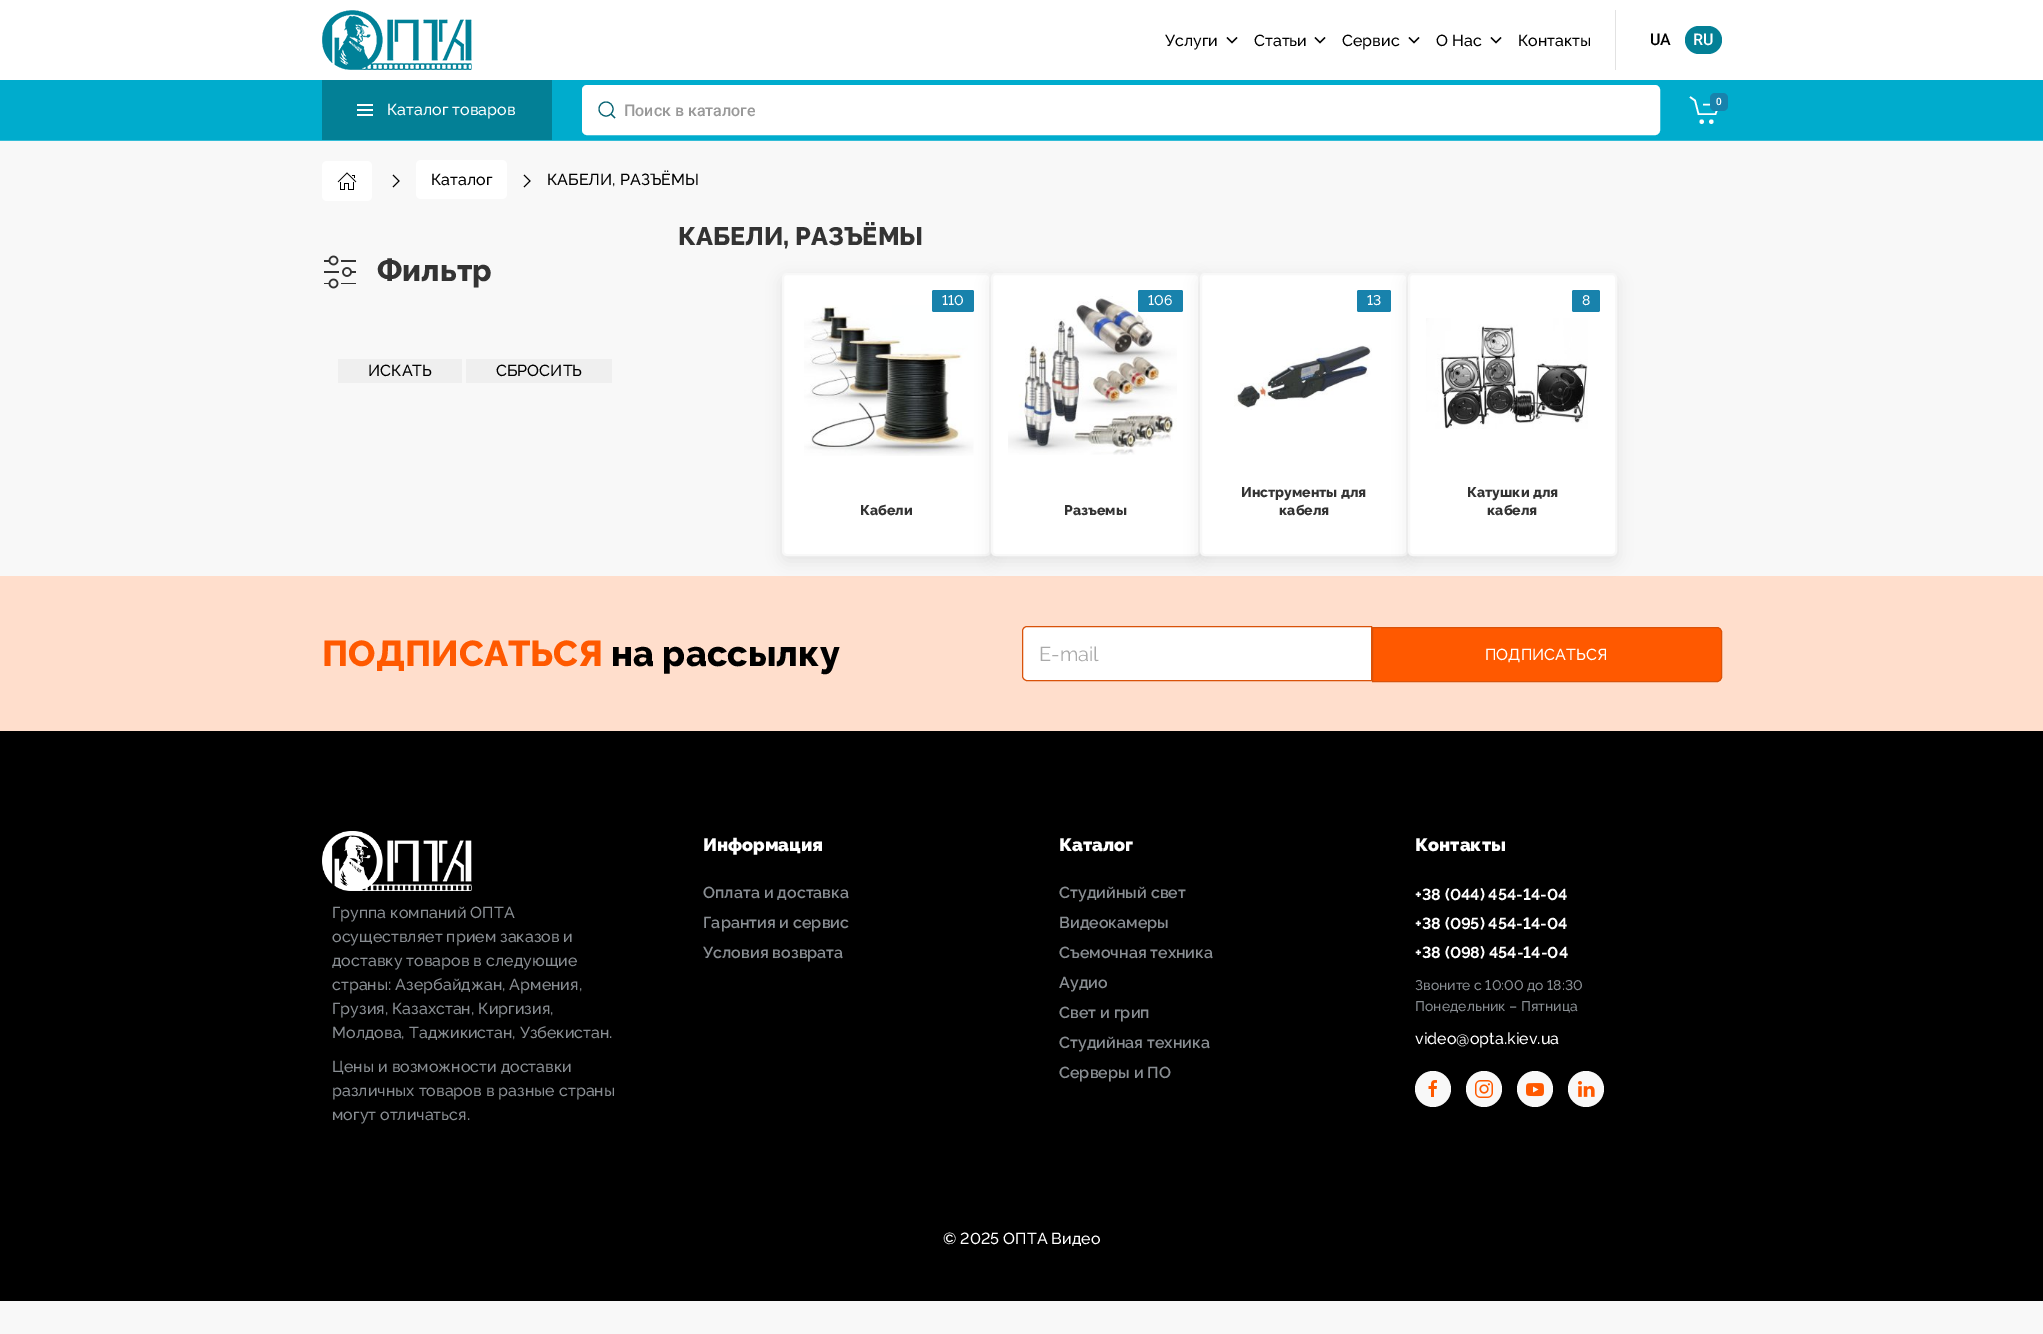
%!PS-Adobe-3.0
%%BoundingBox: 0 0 2043 1334
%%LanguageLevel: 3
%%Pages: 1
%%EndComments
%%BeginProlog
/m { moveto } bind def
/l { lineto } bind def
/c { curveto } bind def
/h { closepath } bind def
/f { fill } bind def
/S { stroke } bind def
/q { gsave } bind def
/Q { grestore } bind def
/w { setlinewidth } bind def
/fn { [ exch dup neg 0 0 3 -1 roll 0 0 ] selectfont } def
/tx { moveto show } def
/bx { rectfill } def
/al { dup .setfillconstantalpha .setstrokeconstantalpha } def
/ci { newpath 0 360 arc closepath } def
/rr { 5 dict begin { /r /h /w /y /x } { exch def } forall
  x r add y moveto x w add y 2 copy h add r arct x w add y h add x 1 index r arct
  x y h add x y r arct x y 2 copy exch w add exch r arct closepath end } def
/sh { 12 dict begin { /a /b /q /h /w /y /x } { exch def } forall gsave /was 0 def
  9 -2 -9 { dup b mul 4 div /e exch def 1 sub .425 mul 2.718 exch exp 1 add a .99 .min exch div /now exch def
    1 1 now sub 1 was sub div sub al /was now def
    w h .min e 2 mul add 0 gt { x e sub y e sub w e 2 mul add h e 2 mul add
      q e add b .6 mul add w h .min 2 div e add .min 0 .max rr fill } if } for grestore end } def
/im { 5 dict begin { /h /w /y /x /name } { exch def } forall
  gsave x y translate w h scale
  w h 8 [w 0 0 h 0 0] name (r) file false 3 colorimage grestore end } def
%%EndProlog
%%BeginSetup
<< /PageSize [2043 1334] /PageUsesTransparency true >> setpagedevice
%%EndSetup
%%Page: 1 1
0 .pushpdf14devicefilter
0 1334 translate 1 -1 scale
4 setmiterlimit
0.973 setgray
0 0 2043 1334 bx
1 setgray
0 0 2043 80 bx
(image0.raw) 322 10 150 60 im
0.886 setgray
1615 10 1 60 bx
/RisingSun-Medium 16 fn
0 setgray
(Услуги) 1165 46 tx
1.1 w
1227 37.5 m 1232 42.5 l 1237 37.5 l S
(Статьи) 1254 46 tx
1315 37.5 m 1320 42.5 l 1325 37.5 l S
(Сервис) 1342 46 tx
1409 37.5 m 1414 42.5 l 1419 37.5 l S
(О Нас) 1436 46 tx
1491 37.5 m 1496 42.5 l 1501 37.5 l S
(Контакты) 1518 46 tx
/Roboto-Medium 16 fn
(UA) 1650 45 tx
0.012 0.502 0.588 setrgbcolor
1685 26 37 28 14 rr f
1 setgray
(RU) 1693 45 tx
0 0.675 0.804 setrgbcolor
0 80 2043 60 bx
0.2 0.741 0.843 setrgbcolor
0 140 2043 1 bx
1 setgray
1.6 w
1690 97 m 1695 100.5 l 1698.5 114 l 1715.5 114 l 1719 104.5 l 1703 104.5 l S
1701.7 121.7 2.2 ci f
1711.3 121.7 2.2 ci f
0.094 0.51 0.675 setrgbcolor
1710 93 18 18 5 rr f
/Roboto-Medium 10 fn
1 setgray
(0) 1716 105 tx
0.012 0.502 0.588 setrgbcolor
322 80 230 60 bx
1 setgray
357 104 16 2 bx
357 109 16 2 bx
357 114 16 2 bx
/RisingSun-Medium 16 fn
(Каталог товаров) 387 115 tx
583 86 1076 48 4 rr q f Q
2 w
S
0.012 0.376 0.439 setrgbcolor
1.1 w
606 109 7 ci S
611 114 m 615 118 l h S
/Roboto-Medium 16 fn
0.6 setgray
(Поиск в каталоге) 624 116 tx
1 setgray
322 161 50 40 5 rr f
(image1.raw) 337 172 20 18 im
0 setgray
1 w
393 175 m 399 181 l 393 187 l S
1 setgray
416 160 91 39 5 rr f
/RisingSun-Medium 16 fn
0 setgray
(Каталог) 431 185 tx
524 175 m 530 181 l 524 187 l S
(КАБЕЛИ, РАЗЪЁМЫ) 547 185 tx
(image2.raw) 324 255 32 34 im
/RisingSun-ExtraBold 30.5 fn
0.2 setgray
(Фильтр) 377 281 tx
0.937 setgray
338 359 124 24 bx
/RisingSun-Medium 16 fn
0 setgray
(ИСКАТЬ) 368 376 tx
0.937 setgray
466 359 146 24 bx
0 setgray
(СБРОСИТЬ) 496 376 tx
/RisingSun-ExtraBold 25.25 fn
0.2 setgray
(КАБЕЛИ, РАЗЪЁМЫ) 678 245 tx
1 0.871 0.8 setrgbcolor
0 576 2043 155 bx
0 setgray
782 278 209 283 5 7.5 0.08 sh
1 setgray
783 274 207 281 4 rr q f Q
0.973 setgray
2 w
S
(image3.raw) 804 305 170 151 im
0 setgray
991 278 209 283 5 7.5 0.08 sh
0.094 0.51 0.675 setrgbcolor
932 290 42 22 2 rr f
/RisingSun-Medium 14 fn
1 setgray
(110) 942 305 tx
/RisingSun-ExtraBold 14 fn
0.2 setgray
(Кабели) 860 515 tx
1 setgray
992 274 207 281 4 rr q f Q
0.973 setgray
S
(image4.raw) 1008 296 169 159 im
0 setgray
1200 278 208 283 5 7.5 0.08 sh
0.094 0.51 0.675 setrgbcolor
1138 290 45 22 2 rr f
/RisingSun-Medium 14 fn
1 setgray
(106) 1148 305 tx
/RisingSun-ExtraBold 14 fn
0.2 setgray
(Разъемы) 1064 515 tx
1 setgray
1201 274 206 281 4 rr q f Q
0.973 setgray
S
0 setgray
1408 278 209 283 5 7.5 0.08 sh
0.094 0.51 0.675 setrgbcolor
1357 290 34 22 2 rr f
/RisingSun-Medium 14 fn
1 setgray
(13) 1367 305 tx
(image5.raw) 1234 345 138 65 im
/RisingSun-ExtraBold 14 fn
0.2 setgray
(Инструменты для) 1241 497 tx
(кабеля) 1279 515 tx
1 setgray
1409 274 207 281 4 rr q f Q
0.973 setgray
S
0.094 0.51 0.675 setrgbcolor
1572 290 28 22 2 rr f
/RisingSun-Medium 14 fn
1 setgray
(8) 1582 305 tx
(image6.raw) 1426 318 162 111 im
/RisingSun-ExtraBold 14 fn
0.2 setgray
(Катушки для) 1467 497 tx
(кабеля) 1487 515 tx
/RisingSun-ExtraBold 36 fn
1 0.349 0 setrgbcolor
(ПОДПИСАТЬСЯ) 322 666 tx
0 setgray
(на рассылку) 611 666 tx
1 setgray
1027 626.5 m 1371.5 626.5 l 1371.5 680.5 l 1027 680.5 l 1024.5 680.5 1022.5 678.5 1022.5 676 c 1022.5 631 l 1022.5 628.5 1024.5 626.5 1027 626.5 c h q f Q
0.851 0.322 0.035 setrgbcolor
1 w
S
/RisingSun-Regular 20 fn
0.667 setgray
(E-mail) 1039 661 tx
1 0.349 0 setrgbcolor
1372.5 627.5 m 1717 627.5 l 1719.5 627.5 1721.5 629.5 1721.5 632 c 1721.5 677 l 1721.5 679.5 1719.5 681.5 1717 681.5 c 1372.5 681.5 l h q f Q
0.851 0.322 0.035 setrgbcolor
S
/RisingSun-Medium 16 fn
1 setgray
(ПОДПИСАТЬСЯ) 1485 660 tx
0 setgray
0 731 2043 570 bx
(image7.raw) 322 831 150 60 im
0.537 0.557 0.576 setrgbcolor
(Группа компаний ОПТА) 332 918 tx
(осуществляет прием заказов и) 332 942 tx
(доставку товаров в следующие) 332 966 tx
(страны: Азербайджан, Армения,) 332 990 tx
(Грузия, Казахстан, Киргизия,) 332 1014 tx
(Молдова, Таджикистан, Узбекистан.) 332 1038 tx
(Цены и возможности доставки) 332 1072 tx
(различных товаров в разные страны) 332 1096 tx
(могут отличаться.) 332 1120 tx
/RisingSun-Black 18 fn
1 setgray
(Информация) 703 851 tx
/RisingSun-SemiBold 16 fn
0.537 0.557 0.576 setrgbcolor
(Оплата и доставка) 703 898 tx
(Гарантия и сервис) 703 928 tx
(Условия возврата) 703 958 tx
/RisingSun-Black 18 fn
1 setgray
(Каталог) 1059 851 tx
/RisingSun-SemiBold 16 fn
0.537 0.557 0.576 setrgbcolor
(Студийный свет) 1059 898 tx
(Видеокамеры) 1059 928 tx
(Съемочная техника) 1059 958 tx
(Аудио) 1059 988 tx
(Свет и грип) 1059 1018 tx
(Студийная техника) 1059 1048 tx
(Серверы и ПО) 1059 1078 tx
/RisingSun-Black 18 fn
1 setgray
(Контакты) 1415 851 tx
/RisingSun-Bold 16 fn
(+38 \(044\) 454-14-04) 1415 900 tx
(+38 \(095\) 454-14-04) 1415 929 tx
(+38 \(098\) 454-14-04) 1415 958 tx
/RisingSun-Medium 14 fn
0.537 0.557 0.576 setrgbcolor
(Звоните с 10:00 до 18:30) 1415 990 tx
(Понедельник – Пятница) 1415 1011 tx
/RisingSun-Medium 16 fn
1 setgray
(video@opta.kiev.ua) 1415 1044 tx
0.973 setgray
1433 1089 18 ci f
(image8.raw) 1428 1080 9 17 im
1484 1089 18 ci f
(image9.raw) 1475 1080 18 18 im
1535 1089 18 ci f
(image10.raw) 1526 1083 18 14 im
1586 1089 18 ci f
(image11.raw) 1578 1081 17 16 im
1 setgray
(© 2025 ОПТА Видео) 943 1244 tx
.poppdf14devicefilter showpage
%%EOF
